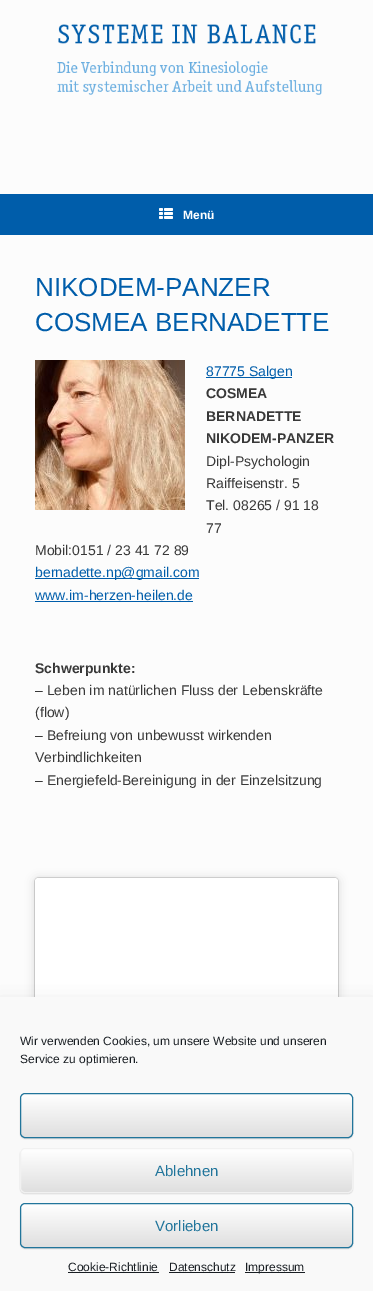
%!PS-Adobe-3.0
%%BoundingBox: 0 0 373 1291
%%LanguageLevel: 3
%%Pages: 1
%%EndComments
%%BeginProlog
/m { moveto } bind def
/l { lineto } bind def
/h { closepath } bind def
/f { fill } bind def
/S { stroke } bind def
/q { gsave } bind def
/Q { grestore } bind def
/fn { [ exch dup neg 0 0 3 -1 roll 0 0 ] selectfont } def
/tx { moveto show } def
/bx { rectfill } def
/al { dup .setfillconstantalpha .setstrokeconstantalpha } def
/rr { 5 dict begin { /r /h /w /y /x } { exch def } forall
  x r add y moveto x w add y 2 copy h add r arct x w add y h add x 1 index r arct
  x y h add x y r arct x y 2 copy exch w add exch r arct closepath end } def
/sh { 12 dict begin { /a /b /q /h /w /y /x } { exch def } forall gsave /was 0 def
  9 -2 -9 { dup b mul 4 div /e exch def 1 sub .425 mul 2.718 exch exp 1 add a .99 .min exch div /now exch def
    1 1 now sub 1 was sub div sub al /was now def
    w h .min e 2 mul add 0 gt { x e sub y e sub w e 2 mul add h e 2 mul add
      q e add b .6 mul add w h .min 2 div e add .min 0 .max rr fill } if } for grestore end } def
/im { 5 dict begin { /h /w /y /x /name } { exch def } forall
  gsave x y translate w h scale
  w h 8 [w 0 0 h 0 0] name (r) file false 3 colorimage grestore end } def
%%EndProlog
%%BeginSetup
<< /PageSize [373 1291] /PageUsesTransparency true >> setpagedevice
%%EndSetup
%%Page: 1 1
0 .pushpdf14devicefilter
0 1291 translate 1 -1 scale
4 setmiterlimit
0.988 setgray
0 0 373 1291 bx
(image0.raw) 57 24 265 71 im
0 0.365 0.667 setrgbcolor
0 194 373 41 bx
(image1.raw) 159 208 14 11 im
/LiberationSans-Bold 12 fn
1 setgray
(Menü) 183 219 tx
/LiberationSans-Regular 26 fn
0 0.365 0.667 setrgbcolor
(NIKODEM-PANZER) 35 296 tx
(COSMEA BERNADETTE) 35 331 tx
(image2.raw) 35 360 150 150 im
206 377 86 1 bx
/LiberationSans-Regular 14 fn
(87775 Salgen) 206 376 tx
/LiberationSans-Bold 14 fn
0.22 setgray
(COSMEA) 206 398 tx
(BERNADETTE) 206 421 tx
(NIKODEM-PANZER) 206 443 tx
/LiberationSans-Regular 14 fn
(Dipl-Psychologin) 206 466 tx
(Raiffeisenstr. 5) 206 488 tx
(Tel. 08265 / 91 18) 206 510 tx
(77) 206 533 tx
(Mobil:0151 / 23 41 72 89) 35 555 tx
0 0.365 0.667 setrgbcolor
35 578 164 1 bx
(bernadette.np@gmail.com) 35 577 tx
(www.im-herzen-heilen.de) 35 600 tx
35 601 158 1 bx
/LiberationSans-Bold 14 fn
0.22 setgray
(Schwerpunkte:) 35 673 tx
/LiberationSans-Regular 14 fn
(– Leben im natürlichen Fluss der Lebenskräfte) 35 695 tx
(\(flow\)) 35 717 tx
(– Befreiung von unbewusst wirkenden) 35 740 tx
(Verbindlichkeiten) 35 762 tx
(– Energiefeld-Bereinigung in der Einzelsitzung) 35 785 tx
0 setgray
35 879 303 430 3 5 0.15 sh
35 878 303 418 3 0.5 0.5 sh
1 setgray
35 878 303 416 3 rr f
0 setgray
0 1007 373 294 0 10 0.19 sh
0.976 setgray
0 997 373 294 bx
/LiberationSans-Regular 12 fn
0.098 0.118 0.137 setrgbcolor
(Wir verwenden Cookies, um unsere Website und unseren) 20 1045 tx
(Service zu optimieren.) 20 1063 tx
0 setgray
20 1094 333 45 5 0.5 0.12 sh
q
20 1093 333 45 5 rr clip newpath
q 20 1094 m 353 1094 l 353 1137 l 20 1137 l h clip newpath
<< /ShadingType 2 /ColorSpace /DeviceRGB /Coords [21 1137 21 1094] /Extend [true true] /Function << /FunctionType 2 /Domain [0 1] /C0 [0.875 0.875 0.875] /C1 [1 1 1] /N 1 >> >> shfill Q
Q
0.129 0.459 0.608 setrgbcolor
20.5 1093.5 332 44 4.5 rr S
0 setgray
20 1149 333 45 5 0.5 0.12 sh
q
20 1148 333 45 5 rr clip newpath
q 20 1149 m 353 1149 l 353 1192 l 20 1192 l h clip newpath
<< /ShadingType 2 /ColorSpace /DeviceRGB /Coords [21 1192 21 1149] /Extend [true true] /Function << /FunctionType 2 /Domain [0 1] /C0 [0.875 0.875 0.875] /C1 [1 1 1] /N 1 >> >> shfill Q
Q
0.945 setgray
20.5 1148.5 332 44 4.5 rr S
/LiberationSans-Regular 15 fn
0.129 0.459 0.608 setrgbcolor
(Ablehnen) 155 1176 tx
0 setgray
20 1204 333 45 5 0.5 0.12 sh
q
20 1203 333 45 5 rr clip newpath
q 20 1204 m 353 1204 l 353 1247 l 20 1247 l h clip newpath
<< /ShadingType 2 /ColorSpace /DeviceRGB /Coords [21 1247 21 1204] /Extend [true true] /Function << /FunctionType 2 /Domain [0 1] /C0 [0.875 0.875 0.875] /C1 [1 1 1] /N 1 >> >> shfill Q
Q
0.129 0.459 0.608 setrgbcolor
20.5 1203.5 332 44 4.5 rr S
(Vorlieben) 155 1231 tx
/LiberationSans-Regular 12 fn
0.098 0.118 0.137 setrgbcolor
(Cookie-Richtlinie) 68 1271 tx
68 1272 91 1 bx
(Datenschutz) 169 1271 tx
169 1272 66 1 bx
245 1272 60 1 bx
(Impressum) 245 1271 tx
.poppdf14devicefilter showpage
%%EOF
